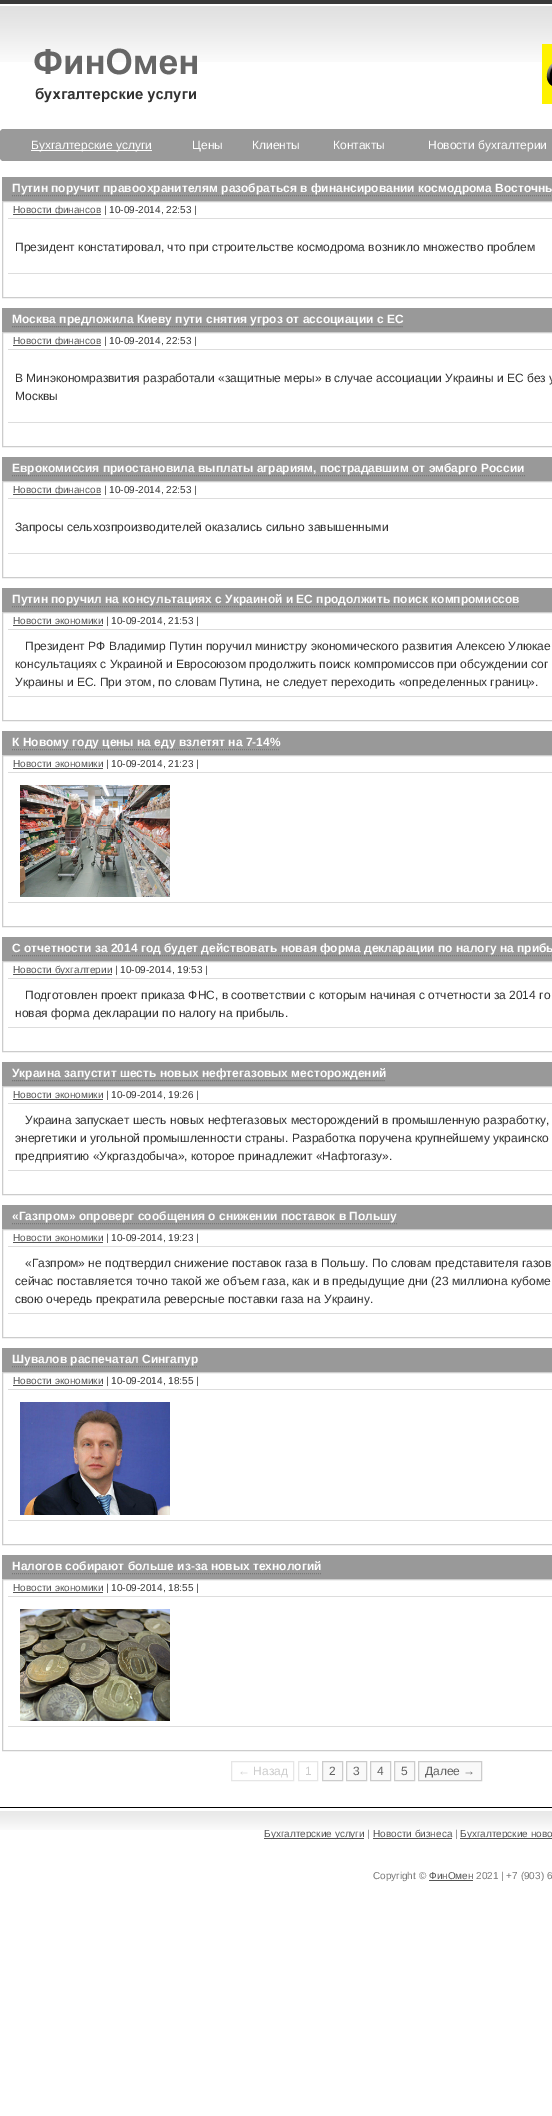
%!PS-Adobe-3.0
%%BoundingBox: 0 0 552 2116
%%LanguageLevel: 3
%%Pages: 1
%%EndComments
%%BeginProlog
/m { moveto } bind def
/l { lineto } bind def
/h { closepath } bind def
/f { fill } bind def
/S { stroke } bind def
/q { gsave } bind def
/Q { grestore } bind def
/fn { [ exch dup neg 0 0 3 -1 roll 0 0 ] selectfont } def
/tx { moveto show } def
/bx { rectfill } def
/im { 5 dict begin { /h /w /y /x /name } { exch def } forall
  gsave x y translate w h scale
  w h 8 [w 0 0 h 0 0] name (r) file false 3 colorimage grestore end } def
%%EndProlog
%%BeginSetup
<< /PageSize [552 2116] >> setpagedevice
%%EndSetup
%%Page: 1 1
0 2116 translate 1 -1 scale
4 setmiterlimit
1 setgray
0 0 552 2116 bx
0.224 setgray
0 0 552 4 bx
(image1.raw) 0 6 552 56 im
(image0.raw) 542 44 10 60 im
(image2.raw) 34 48 163 55 im
0.604 setgray
2 129 550 32 bx
(image3.raw) 0 129 2 32 im
1 setgray
31 150 121 1 bx
/LiberationSans-Regular 12 fn
(Бухгалтерские услуги) 31 149 tx
(Цены) 192 149 tx
(Клиенты) 252 149 tx
(Контакты) 333 149 tx
(Новости бухгалтерии) 428 149 tx
0.6 setgray
2 177 550 24 bx
/LiberationSans-Bold 12 fn
1 setgray
(Путин поручит правоохранителям разобраться в финансировании космодрома Восточны) 12 192 tx
0.467 setgray
[1 1] 0 setdash
12 195.5 m 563 195.5 l S
0.8 setgray
[] 0 setdash
2.5 201.5 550 96 rectstroke
0.867 setgray
8 218 544 1 bx
0.333 setgray
13 214 88 1 bx
/LiberationSans-Regular 10 fn
(Новости финансов) 13 213 tx
0.2 setgray
(| 10-09-2014, 22:53 |) 104 213 tx
/LiberationSans-Regular 12 fn
(Президент констатировал, что при строительстве космодрома возникло множество проблем) 15 251 tx
0.867 setgray
8 273 544 1 bx
0.6 setgray
2 308 550 24 bx
/LiberationSans-Bold 12 fn
1 setgray
(Москва предложила Киеву пути снятия угроз от ассоциации с ЕС) 12 323 tx
0.467 setgray
[1 1] 0 setdash
12 326.5 m 404 326.5 l S
0.8 setgray
[] 0 setdash
2.5 332.5 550 114 rectstroke
0.867 setgray
8 349 544 1 bx
0.333 setgray
13 345 88 1 bx
/LiberationSans-Regular 10 fn
(Новости финансов) 13 344 tx
0.2 setgray
(| 10-09-2014, 22:53 |) 104 344 tx
/LiberationSans-Regular 12 fn
(В Минэкономразвития разработали «защитные меры» в случае ассоциации Украины и ЕС без у) 15 382 tx
(Москвы) 15 400 tx
0.867 setgray
8 422 544 1 bx
0.6 setgray
2 457 550 24 bx
/LiberationSans-Bold 12 fn
1 setgray
(Еврокомиссия приостановила выплаты аграриям, пострадавшим от эмбарго России) 12 472 tx
0.467 setgray
[1 1] 0 setdash
12 475.5 m 525 475.5 l S
0.8 setgray
[] 0 setdash
2.5 481.5 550 96 rectstroke
0.867 setgray
8 498 544 1 bx
0.333 setgray
13 494 88 1 bx
/LiberationSans-Regular 10 fn
(Новости финансов) 13 493 tx
0.2 setgray
(| 10-09-2014, 22:53 |) 104 493 tx
/LiberationSans-Regular 12 fn
(Запросы сельхозпроизводителей оказались сильно завышенными) 15 531 tx
0.867 setgray
8 553 544 1 bx
0.6 setgray
2 588 550 24 bx
/LiberationSans-Bold 12 fn
1 setgray
(Путин поручил на консультациях с Украиной и ЕС продолжить поиск компромиссов) 12 603 tx
0.467 setgray
[1 1] 0 setdash
12 606.5 m 520 606.5 l S
0.8 setgray
[] 0 setdash
2.5 612.5 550 108 rectstroke
0.867 setgray
8 629 544 1 bx
/LiberationSans-Regular 10 fn
0.333 setgray
(Новости экономики) 13 624 tx
13 625 90 1 bx
0.2 setgray
(| 10-09-2014, 21:53 |) 106 624 tx
/LiberationSans-Regular 12 fn
(Президент РФ Владимир Путин поручил министру экономического развития Алексею Улюкае) 25 650 tx
(консультациях с Украиной и Евросоюзом продолжить поиск компромиссов при обсуждении сог) 15 668 tx
(Украины и ЕС. При этом, по словам Путина, не следует переходить «определенных границ».) 15 686 tx
0.867 setgray
8 696 544 1 bx
0.6 setgray
2 731 550 24 bx
/LiberationSans-Bold 12 fn
1 setgray
(К Новому году цены на еду взлетят на 7-14%) 12 746 tx
0.467 setgray
[1 1] 0 setdash
12 749.5 m 280 749.5 l S
0.8 setgray
[] 0 setdash
2.5 755.5 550 171 rectstroke
0.867 setgray
8 772 544 1 bx
/LiberationSans-Regular 10 fn
0.333 setgray
(Новости экономики) 13 767 tx
13 768 90 1 bx
0.2 setgray
(| 10-09-2014, 21:23 |) 106 767 tx
(image4.raw) 20 785 150 112 im
0.867 setgray
8 902 544 1 bx
0.6 setgray
2 937 550 24 bx
/LiberationSans-Bold 12 fn
1 setgray
(С отчетности за 2014 год будет действовать новая форма декларации по налогу на прибы) 12 952 tx
0.467 setgray
[1 1] 0 setdash
12 955.5 m 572 955.5 l S
0.8 setgray
[] 0 setdash
2.5 961.5 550 90 rectstroke
0.867 setgray
8 978 544 1 bx
0.333 setgray
13 974 99 1 bx
/LiberationSans-Regular 10 fn
(Новости бухгалтерии) 13 973 tx
0.2 setgray
(| 10-09-2014, 19:53 |) 115 973 tx
/LiberationSans-Regular 12 fn
(Подготовлен проект приказа ФНС, в соответствии с которым начиная с отчетности за 2014 го) 25 999 tx
(новая форма декларации по налогу на прибыль.) 15 1017 tx
0.867 setgray
8 1027 544 1 bx
0.6 setgray
2 1062 550 24 bx
/LiberationSans-Bold 12 fn
1 setgray
(Украина запустит шесть новых нефтегазовых месторождений) 12 1077 tx
0.467 setgray
[1 1] 0 setdash
12 1080.5 m 386 1080.5 l S
0.8 setgray
[] 0 setdash
2.5 1086.5 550 108 rectstroke
0.867 setgray
8 1103 544 1 bx
/LiberationSans-Regular 10 fn
0.333 setgray
(Новости экономики) 13 1098 tx
13 1099 90 1 bx
0.2 setgray
(| 10-09-2014, 19:26 |) 106 1098 tx
/LiberationSans-Regular 12 fn
(Украина запускает шесть новых нефтегазовых месторождений в промышленную разработку,) 25 1124 tx
(энергетики и угольной промышленности страны. Разработка поручена крупнейшему украинско) 15 1142 tx
(предприятию «Укргаздобыча», которое принадлежит «Нафтогазу».) 15 1160 tx
0.867 setgray
8 1170 544 1 bx
0.6 setgray
2 1205 550 24 bx
/LiberationSans-Bold 12 fn
1 setgray
(«Газпром» опроверг сообщения о снижении поставок в Польшу) 12 1220 tx
0.467 setgray
[1 1] 0 setdash
12 1223.5 m 397 1223.5 l S
0.8 setgray
[] 0 setdash
2.5 1229.5 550 108 rectstroke
0.867 setgray
8 1246 544 1 bx
/LiberationSans-Regular 10 fn
0.333 setgray
(Новости экономики) 13 1241 tx
13 1242 90 1 bx
0.2 setgray
(| 10-09-2014, 19:23 |) 106 1241 tx
/LiberationSans-Regular 12 fn
(«Газпром» не подтвердил снижение поставок газа в Польшу. По словам представителя газов) 25 1267 tx
(сейчас поставляется точно такой же объем газа, как и в предыдущие дни \(23 миллиона кубоме) 15 1285 tx
(свою очередь прекратила реверсные поставки газа на Украину.) 15 1303 tx
0.867 setgray
8 1313 544 1 bx
0.6 setgray
2 1348 550 24 bx
/LiberationSans-Bold 12 fn
1 setgray
(Шувалов распечатал Сингапур) 12 1363 tx
0.467 setgray
[1 1] 0 setdash
12 1366.5 m 198 1366.5 l S
0.8 setgray
[] 0 setdash
2.5 1372.5 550 172 rectstroke
0.867 setgray
8 1389 544 1 bx
/LiberationSans-Regular 10 fn
0.333 setgray
(Новости экономики) 13 1384 tx
13 1385 90 1 bx
0.2 setgray
(| 10-09-2014, 18:55 |) 106 1384 tx
(image5.raw) 20 1402 150 113 im
0.867 setgray
8 1520 544 1 bx
0.6 setgray
2 1555 550 24 bx
/LiberationSans-Bold 12 fn
1 setgray
(Налогов собирают больше из-за новых технологий) 12 1570 tx
0.467 setgray
[1 1] 0 setdash
12 1573.5 m 321 1573.5 l S
0.8 setgray
[] 0 setdash
2.5 1579.5 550 171 rectstroke
0.867 setgray
8 1596 544 1 bx
/LiberationSans-Regular 10 fn
0.333 setgray
(Новости экономики) 13 1591 tx
13 1592 90 1 bx
0.2 setgray
(| 10-09-2014, 18:55 |) 106 1591 tx
(image6.raw) 20 1609 150 112 im
0.867 setgray
8 1726 544 1 bx
0.902 setgray
231.5 1761.5 62 19 rectstroke
/LiberationSans-Regular 12 fn
0.8 setgray
(← Назад) 238 1775 tx
0.902 setgray
298.5 1761.5 19 19 rectstroke
0.8 setgray
(1) 305 1775 tx
0.976 setgray
322.5 1761.5 m 342.5 1761.5 l 342.5 1780.5 l 322.5 1780.5 l h q f Q
0.8 setgray
S
0.388 setgray
(2) 329 1775 tx
0.976 setgray
346.5 1761.5 m 366.5 1761.5 l 366.5 1780.5 l 346.5 1780.5 l h q f Q
0.8 setgray
S
0.388 setgray
(3) 353 1775 tx
0.976 setgray
370.5 1761.5 m 390.5 1761.5 l 390.5 1780.5 l 370.5 1780.5 l h q f Q
0.8 setgray
S
0.388 setgray
(4) 377 1775 tx
0.976 setgray
394.5 1761.5 m 414.5 1761.5 l 414.5 1780.5 l 394.5 1780.5 l h q f Q
0.8 setgray
S
0.388 setgray
(5) 401 1775 tx
0.976 setgray
418.5 1761.5 m 481.5 1761.5 l 481.5 1780.5 l 418.5 1780.5 l h q f Q
0.8 setgray
S
0.388 setgray
(Далее →) 425 1775 tx
(image7.raw) 0 1811 552 19 im
0 setgray
0 1807 552 1 bx
0.333 setgray
264 1838 100 1 bx
/LiberationSans-Regular 10 fn
(Бухгалтерские услуги) 264 1837 tx
0.467 setgray
(|) 367 1837 tx
0.333 setgray
(Новости бизнеса) 373 1837 tx
373 1838 79 1 bx
0.467 setgray
(|) 455 1837 tx
0.333 setgray
460 1838 92 1 bx
(Бухгалтерские ново) 460 1837 tx
0.467 setgray
(Copyright ©) 373 1879 tx
0.333 setgray
(ФинОмен) 429 1879 tx
429 1880 44 1 bx
0.467 setgray
(2021 | +7 \(903\) 6) 476 1879 tx
showpage
%%EOF
